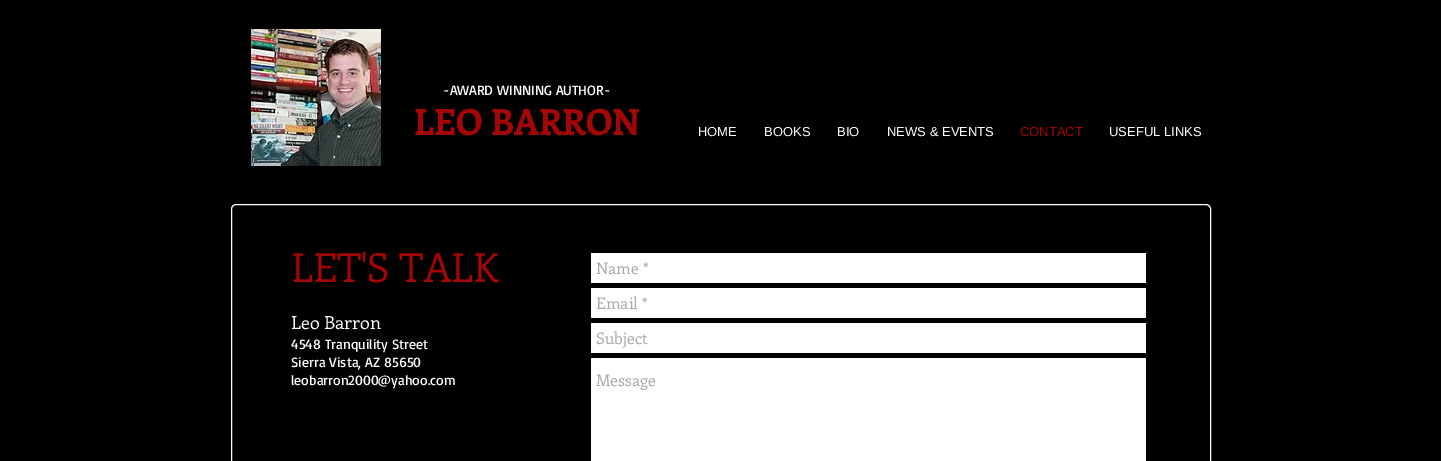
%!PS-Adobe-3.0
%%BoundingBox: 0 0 1441 461
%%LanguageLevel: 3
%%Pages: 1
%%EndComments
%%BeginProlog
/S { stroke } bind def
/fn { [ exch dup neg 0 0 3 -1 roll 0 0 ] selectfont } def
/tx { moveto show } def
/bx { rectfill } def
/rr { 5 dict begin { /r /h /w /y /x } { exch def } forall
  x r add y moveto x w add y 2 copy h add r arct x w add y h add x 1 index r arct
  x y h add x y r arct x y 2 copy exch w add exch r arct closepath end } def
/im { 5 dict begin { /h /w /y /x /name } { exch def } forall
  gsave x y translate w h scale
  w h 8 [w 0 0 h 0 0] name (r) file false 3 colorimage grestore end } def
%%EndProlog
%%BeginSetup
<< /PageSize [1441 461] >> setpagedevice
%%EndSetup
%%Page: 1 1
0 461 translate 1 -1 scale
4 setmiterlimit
0 setgray
0 0 1441 461 bx
(image0.raw) 251 29 130 137 im
/Basic-Regular 14 fn
1 setgray
(-AWARD WINNING AUTHOR-) 443 95 tx
/Enriqueta-Bold 36 fn
0.643 0.024 0.024 setrgbcolor
(LEO BARRON) 414 135 tx
/LiberationSans-Regular 13 fn
1 setgray
(HOME) 698 136 tx
(BOOKS) 764 136 tx
(BIO) 837 136 tx
(NEWS & EVENTS) 887 136 tx
0.643 0.024 0.024 setrgbcolor
(CONTACT) 1020 136 tx
1 setgray
(USEFUL LINKS) 1109 136 tx
231.5 204.5 979 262 4.5 rr S
/Enriqueta-Regular 40 fn
0.643 0.024 0.024 setrgbcolor
(LET'S TALK) 291 282 tx
/Enriqueta-Regular 18 fn
1 setgray
(Leo Barron) 291 329 tx
/Basic-Regular 14 fn
(4548 Tranquility Street) 291 349 tx
(Sierra Vista, AZ 85650) 291 367 tx
(leobarron2000@yahoo.com) 291 385 tx
591 253 555 30 bx
/Enriqueta-Regular 16 fn
0.663 setgray
(Name *) 596 274 tx
1 setgray
591 288 555 30 bx
0.663 setgray
(Email *) 596 309 tx
1 setgray
591 323 555 30 bx
0.663 setgray
(Subject) 596 344 tx
1 setgray
591 358 555 103 bx
0.663 setgray
(Message) 596 386 tx
showpage
%%EOF
